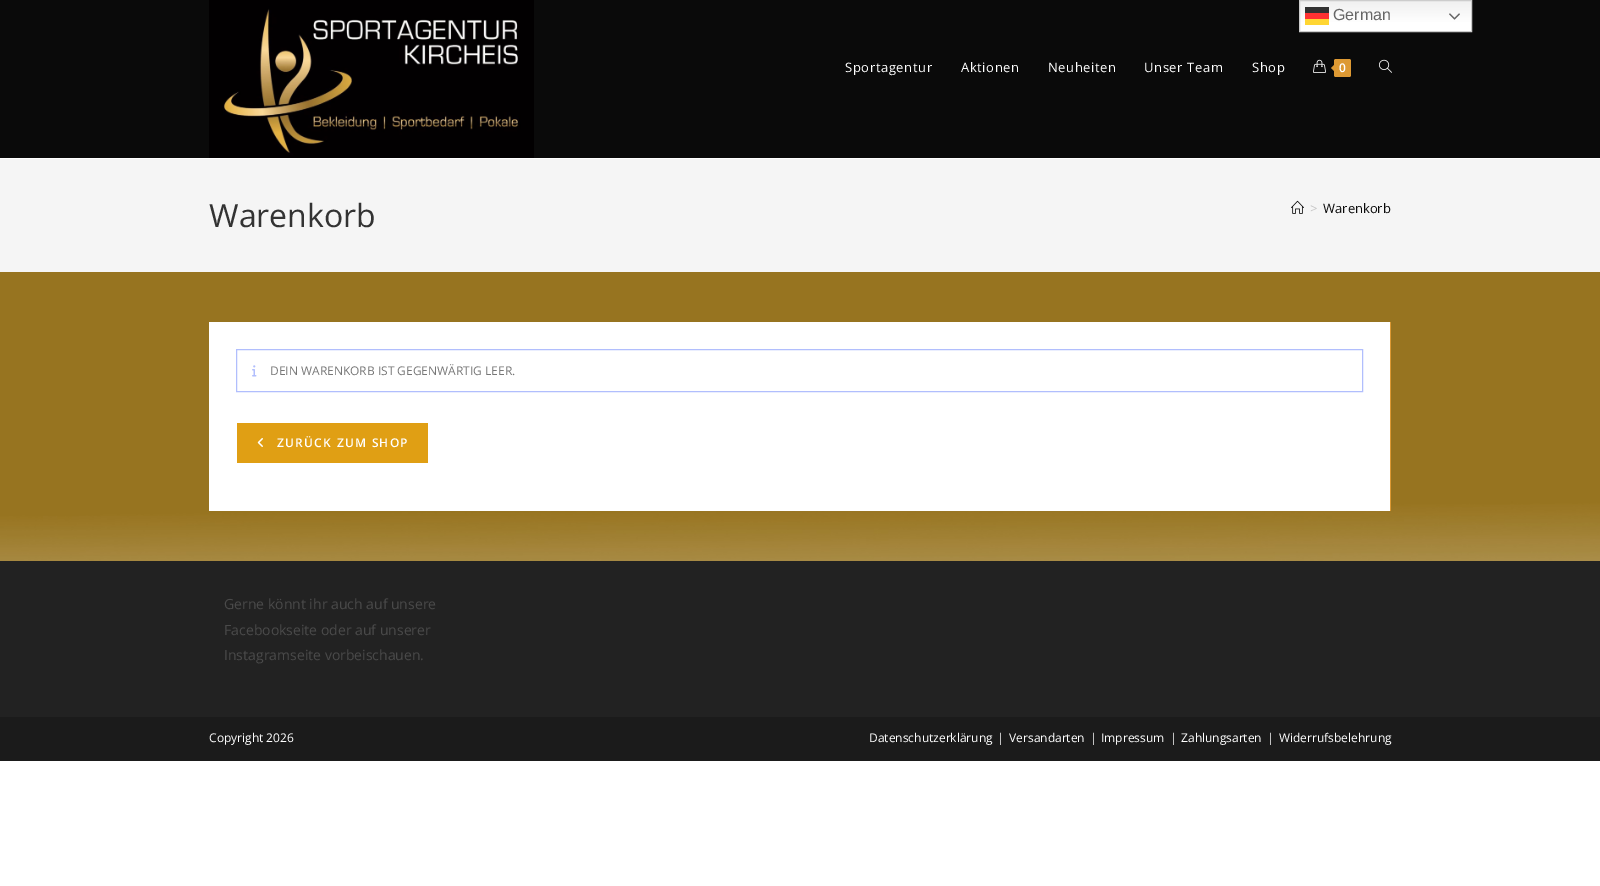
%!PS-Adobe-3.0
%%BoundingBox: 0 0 1600 886
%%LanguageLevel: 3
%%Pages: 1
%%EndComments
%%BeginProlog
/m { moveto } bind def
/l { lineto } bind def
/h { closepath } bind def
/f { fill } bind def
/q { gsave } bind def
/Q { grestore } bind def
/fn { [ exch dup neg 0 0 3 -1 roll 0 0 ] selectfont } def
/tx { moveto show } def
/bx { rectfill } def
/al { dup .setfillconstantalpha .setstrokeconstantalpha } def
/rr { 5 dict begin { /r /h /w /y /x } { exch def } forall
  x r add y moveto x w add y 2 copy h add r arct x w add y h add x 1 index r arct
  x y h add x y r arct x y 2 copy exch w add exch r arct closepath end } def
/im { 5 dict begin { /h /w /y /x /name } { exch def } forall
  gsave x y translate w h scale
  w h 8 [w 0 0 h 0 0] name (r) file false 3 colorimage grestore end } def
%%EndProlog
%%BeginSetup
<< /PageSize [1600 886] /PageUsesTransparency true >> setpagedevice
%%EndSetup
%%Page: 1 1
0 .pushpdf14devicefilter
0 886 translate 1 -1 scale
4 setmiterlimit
1 setgray
0 0 1600 886 bx
(image0.raw) 0 272 1600 289 im
0.039 setgray
0 0 1600 158 bx
q 1300 1 m 1471 1 l 1471 31 l 1300 31 l h clip newpath
<< /ShadingType 2 /ColorSpace /DeviceRGB /Coords [1386 0 1386 32] /Extend [true true] /Function << /FunctionType 3 /Domain [0 1] /Functions [<< /FunctionType 2 /Domain [0 1] /C0 [0.937 0.937 0.937] /C1 [1 1 1] /N 1 >> << /FunctionType 2 /Domain [0 1] /C0 [1 1 1] /C1 [1 1 1] /N 1 >>] /Bounds [0.7] /Encode [0 1 0 1] >> >> shfill Q
0.8 setgray
1299.5 0.5 172 31 rectstroke
0.8 al
0 setgray
1305 7 24 6 bx
/LiberationSans-Regular 16 fn
1 al
0.4 setgray
(German) 1333 20 tx
0.8 al
1 0 0 setrgbcolor
1305 13 24 6 bx
1 al
(image1.raw) 1449 13 11 7 im
1 0.839 0.2 setrgbcolor
1305 19 24 6 bx
(image2.raw) 209 0 325 158 im
/OpenSans-Regular 13 fn
1 setgray
845 72 m 0.6 0 (Sportagentur) ashow
961 72 m 0.6 0 (Aktionen) ashow
1048 72 m 0.6 0 (Neuheiten) ashow
1144 72 m 0.6 0 (Unser Team) ashow
1252 72 m 0.6 0 (Shop) ashow
(image3.raw) 1313 59 13 14 im
0.867 0.6 0.2 setrgbcolor
1334 59 17 18 2 rr f
1336 63 m 1336 73 l 1331 68 l h f
/OpenSans-SemiBold 12 fn
1 setgray
(0) 1339 72 tx
(image4.raw) 1379 59 13 14 im
0.961 setgray
0 159 1600 113 bx
/OpenSans-Regular 32 fn
0.2 setgray
(Warenkorb) 209 227 tx
(image5.raw) 1291 200 13 14 im
/OpenSans-Regular 13 fn
0.776 setgray
(>) 1310 213 tx
0.039 setgray
(Warenkorb) 1323 213 tx
1 setgray
209 322 1181 189 bx
0.867 0.6 0.2 setrgbcolor
1390 322 1 189 bx
0.694 0.745 0.992 setrgbcolor
236.5 349.5 1126 42 rectstroke
(image6.raw) 252 365 5 12 im
/OpenSans-Regular 12 fn
0.467 setgray
(DEIN WARENKORB IST GEGENWÄRTIG LEER.) 270 375 tx
0.878 0.624 0.078 setrgbcolor
237 423 191 40 bx
(image7.raw) 257 438 6 9 im
/OpenSans-SemiBold 12 fn
1 setgray
277 447 m 1.25 0 (ZURÜCK ZUM SHOP) ashow
0.133 setgray
0 561 1600 156 bx
/OpenSans-Regular 14 fn
0.29 setgray
(Gerne könnt ihr auch auf unsere) 224 609 tx
(Facebookseite oder auf unserer) 224 635 tx
(Instagramseite vorbeischauen.) 224 660 tx
0.106 setgray
0 717 1600 44 bx
/OpenSans-Regular 12 fn
1 setgray
(Copyright 2026) 209 742 tx
(Datenschutzerklärung) 869 742 tx
(|) 997 742 tx
(Versandarten) 1009 742 tx
(|) 1090 742 tx
(Impressum) 1101 742 tx
(|) 1170 742 tx
(Zahlungsarten) 1181 742 tx
(|) 1267 742 tx
(Widerrufsbelehrung) 1279 742 tx
.poppdf14devicefilter showpage
%%EOF
